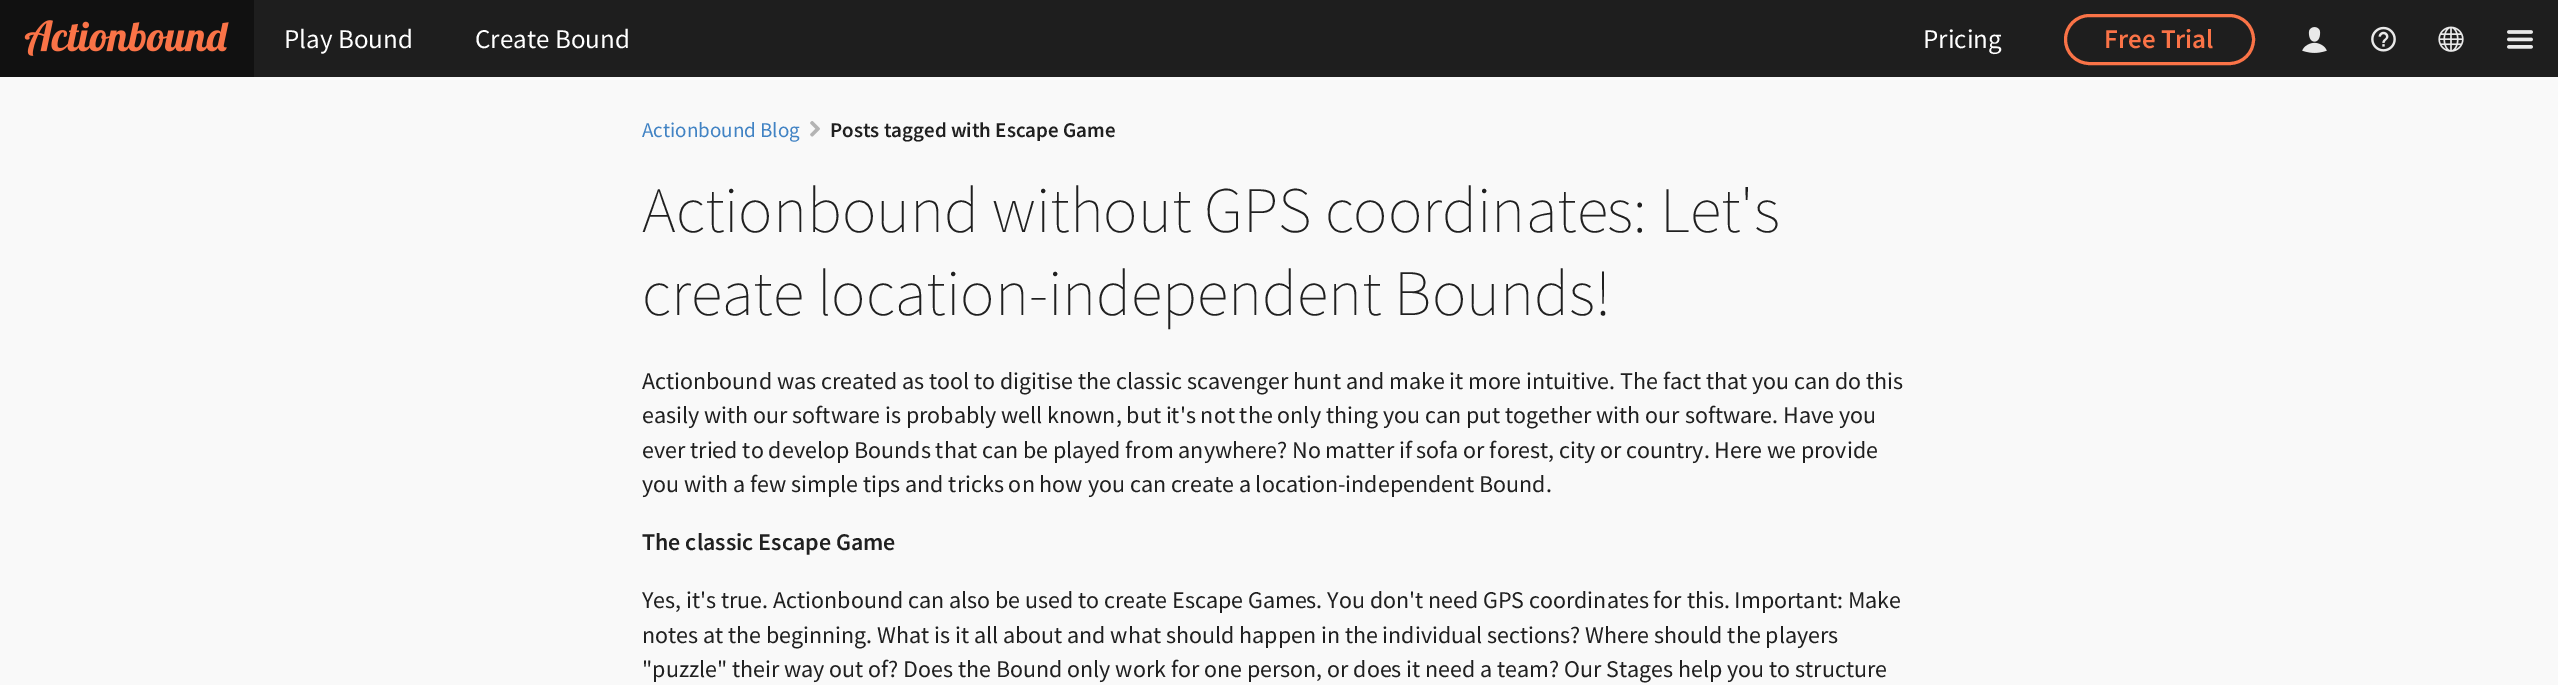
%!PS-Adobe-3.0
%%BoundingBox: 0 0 2558 685
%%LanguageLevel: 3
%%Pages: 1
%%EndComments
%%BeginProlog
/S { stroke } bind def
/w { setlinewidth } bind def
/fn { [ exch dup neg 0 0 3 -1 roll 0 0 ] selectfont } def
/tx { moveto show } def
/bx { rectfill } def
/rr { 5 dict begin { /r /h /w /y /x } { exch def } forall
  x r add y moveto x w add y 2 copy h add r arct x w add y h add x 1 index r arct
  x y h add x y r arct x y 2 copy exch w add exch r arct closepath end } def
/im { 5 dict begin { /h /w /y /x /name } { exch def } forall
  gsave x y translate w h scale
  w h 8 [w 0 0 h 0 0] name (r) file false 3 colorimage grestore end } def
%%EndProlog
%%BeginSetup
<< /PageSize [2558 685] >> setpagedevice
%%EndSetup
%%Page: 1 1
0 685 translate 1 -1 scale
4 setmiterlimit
0.976 setgray
0 0 2558 685 bx
0.118 setgray
254 0 2304 77 bx
0.067 setgray
0 0 254 77 bx
(image0.raw) 24 20 205 36 im
/SourceSansPro-Regular 27 fn
1 setgray
(Play Bound) 284 48 tx
(Create Bound) 475 48 tx
(Pricing) 1923 48 tx
0.98 0.451 0.278 setrgbcolor
3 w
2065.5 15.5 188 48 24 rr S
/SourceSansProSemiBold-SemiBold 27 fn
(Free Trial) 2104 48 tx
(image1.raw) 2302 27 25 26 im
(image2.raw) 2371 26 25 26 im
(image3.raw) 2438 26 26 26 im
(image4.raw) 2507 30 26 19 im
/SourceSansPro-Regular 21 fn
0.255 0.514 0.769 setrgbcolor
(Actionbound Blog) 642 137 tx
(image5.raw) 810 121 10 16 im
/SourceSansProSemiBold-SemiBold 21 fn
0.125 setgray
(Posts tagged with Escape Game) 830 137 tx
/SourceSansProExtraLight-ExtraLight 64.75 fn
(Actionbound without GPS coordinates: Let's) 642 232 tx
(create location-independent Bounds!) 642 315 tx
/SourceSansPro-Regular 24 fn
(Actionbound was created as tool to digitise the classic scavenger hunt and make it more intuitive. The fact that you can do this) 642 389 tx
(easily with our software is probably well known, but it's not the only thing you can put together with our software. Have you) 642 423 tx
(ever tried to develop Bounds that can be played from anywhere? No matter if sofa or forest, city or country. Here we provide) 642 458 tx
(you with a few simple tips and tricks on how you can create a location-independent Bound.) 642 492 tx
/SourceSansProSemiBold-SemiBold 24 fn
(The classic Escape Game) 642 550 tx
/SourceSansPro-Regular 24 fn
(Yes, it's true. Actionbound can also be used to create Escape Games. You don't need GPS coordinates for this. Important: Make) 642 608 tx
(notes at the beginning. What is it all about and what should happen in the individual sections? Where should the players) 642 643 tx
("puzzle" their way out of? Does the Bound only work for one person, or does it need a team? Our Stages help you to structure) 642 677 tx
showpage
%%EOF
